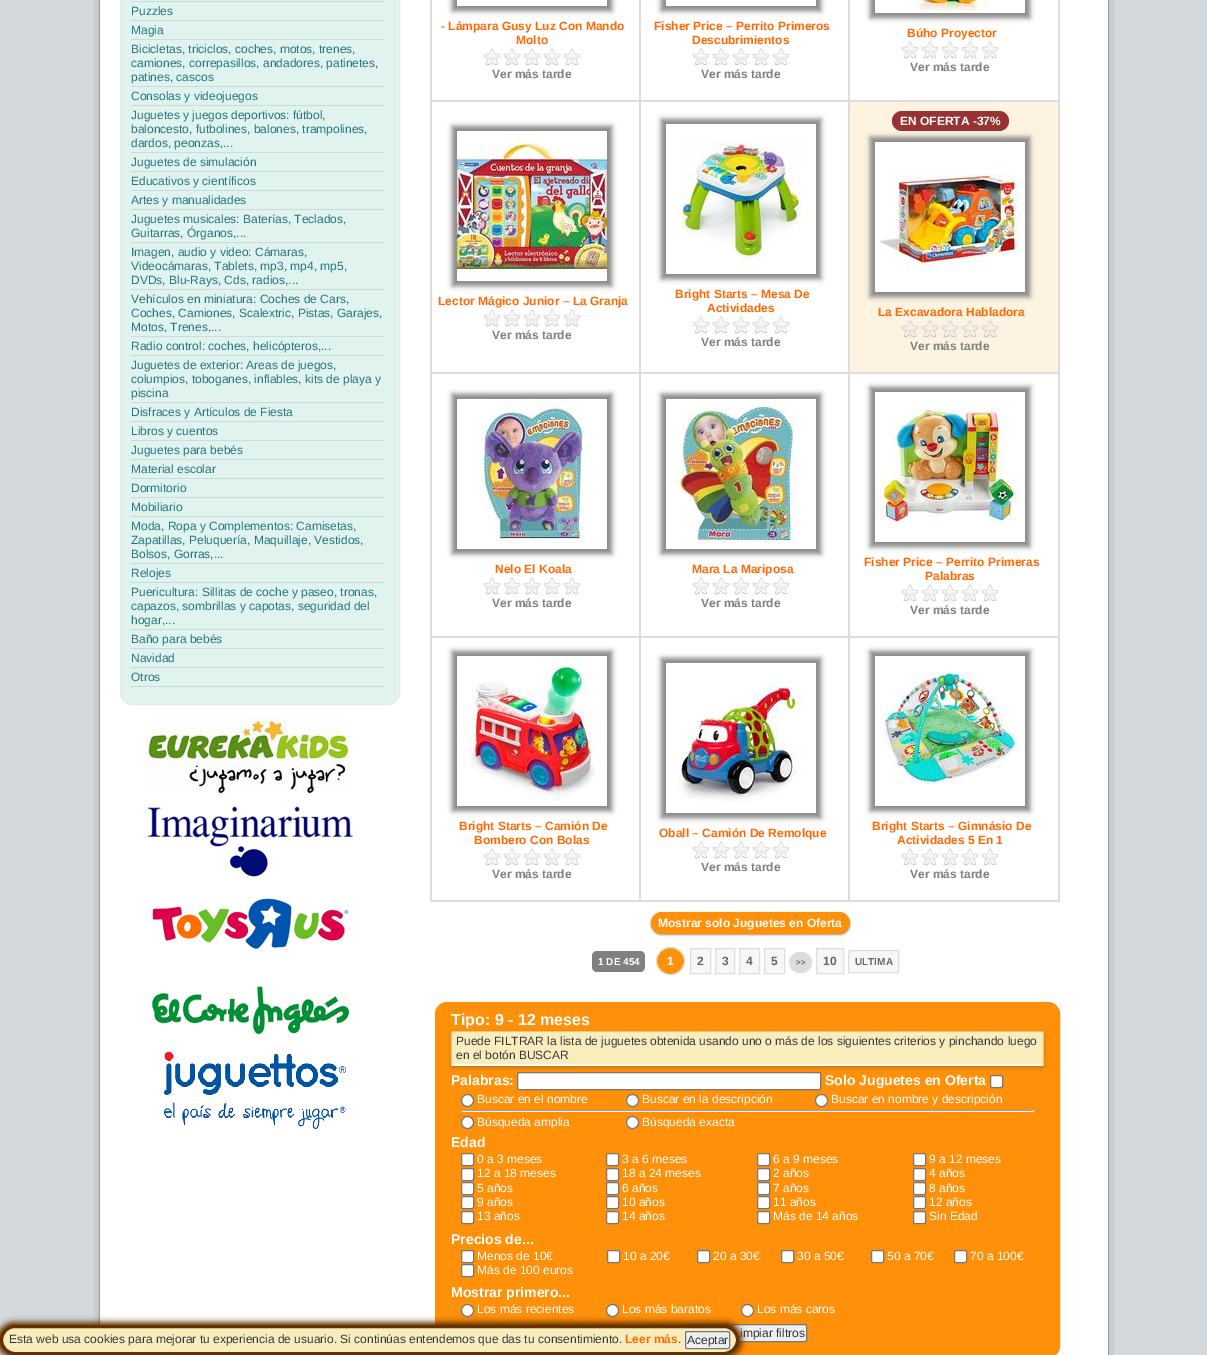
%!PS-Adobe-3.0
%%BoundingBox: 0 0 1207 1355
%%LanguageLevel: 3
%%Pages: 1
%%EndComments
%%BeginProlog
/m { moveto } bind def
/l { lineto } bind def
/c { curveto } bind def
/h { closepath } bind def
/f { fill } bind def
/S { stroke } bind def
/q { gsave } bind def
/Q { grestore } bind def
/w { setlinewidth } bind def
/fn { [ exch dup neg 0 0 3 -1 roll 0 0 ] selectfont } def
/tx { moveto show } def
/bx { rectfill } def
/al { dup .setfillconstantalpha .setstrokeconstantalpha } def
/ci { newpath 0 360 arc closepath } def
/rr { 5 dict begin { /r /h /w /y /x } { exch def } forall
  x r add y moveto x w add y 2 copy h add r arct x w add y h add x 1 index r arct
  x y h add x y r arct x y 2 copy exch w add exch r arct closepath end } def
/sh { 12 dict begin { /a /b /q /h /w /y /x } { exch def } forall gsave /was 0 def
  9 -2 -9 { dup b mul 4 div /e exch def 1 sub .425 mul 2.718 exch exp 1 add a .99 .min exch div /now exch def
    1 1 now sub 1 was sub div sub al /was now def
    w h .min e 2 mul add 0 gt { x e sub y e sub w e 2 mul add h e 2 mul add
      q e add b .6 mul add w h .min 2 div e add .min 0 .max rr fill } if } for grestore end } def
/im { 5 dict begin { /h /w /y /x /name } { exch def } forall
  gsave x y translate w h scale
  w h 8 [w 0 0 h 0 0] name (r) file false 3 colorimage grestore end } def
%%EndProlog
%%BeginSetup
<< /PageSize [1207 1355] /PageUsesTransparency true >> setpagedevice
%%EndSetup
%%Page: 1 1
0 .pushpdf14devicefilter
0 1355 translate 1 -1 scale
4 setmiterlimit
0.831 0.851 0.867 setrgbcolor
0 0 1207 1355 bx
(image0.raw) 93 0 1022 1355 im
0.882 0.953 0.933 setrgbcolor
120.5 -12.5 279 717 11.5 rr q f Q
0.91 setgray
S
0.773 0.871 0.843 setrgbcolor
131 1 253 1 bx
131 20 253 1 bx
/LiberationSans-Regular 12 fn
0.141 0.463 0.51 setrgbcolor
(Puzzles) 131 15 tx
0.773 0.871 0.843 setrgbcolor
131 39 253 1 bx
0.141 0.463 0.51 setrgbcolor
(Magia) 131 34 tx
0.773 0.871 0.843 setrgbcolor
131 86 253 1 bx
0.141 0.463 0.51 setrgbcolor
(Bicicletas, triciclos, coches, motos, trenes,) 131 53 tx
(camiones, correpasillos, andadores, patinetes,) 131 67 tx
(patines, cascos) 131 81 tx
0.773 0.871 0.843 setrgbcolor
131 105 253 1 bx
0.141 0.463 0.51 setrgbcolor
(Consolas y videojuegos) 131 100 tx
0.773 0.871 0.843 setrgbcolor
131 152 253 1 bx
0.141 0.463 0.51 setrgbcolor
(Juguetes y juegos deportivos: fútbol,) 131 119 tx
(baloncesto, futbolines, balones, trampolines,) 131 133 tx
(dardos, peonzas,...) 131 147 tx
0.773 0.871 0.843 setrgbcolor
131 171 253 1 bx
0.141 0.463 0.51 setrgbcolor
(Juguetes de simulación) 131 166 tx
0.773 0.871 0.843 setrgbcolor
131 190 253 1 bx
0.141 0.463 0.51 setrgbcolor
(Educativos y científicos) 131 185 tx
0.773 0.871 0.843 setrgbcolor
131 209 253 1 bx
0.141 0.463 0.51 setrgbcolor
(Artes y manualidades) 131 204 tx
0.773 0.871 0.843 setrgbcolor
131 242 253 1 bx
0.141 0.463 0.51 setrgbcolor
(Juguetes musicales: Baterías, Teclados,) 131 223 tx
(Guitarras, Órganos,...) 131 237 tx
0.773 0.871 0.843 setrgbcolor
131 289 253 1 bx
0.141 0.463 0.51 setrgbcolor
(Imagen, audio y video: Cámaras,) 131 256 tx
(Videocámaras, Tablets, mp3, mp4, mp5,) 131 270 tx
(DVDs, Blu-Rays, Cds, radios,...) 131 284 tx
0.773 0.871 0.843 setrgbcolor
131 336 253 1 bx
0.141 0.463 0.51 setrgbcolor
(Vehículos en miniatura: Coches de Cars,) 131 303 tx
(Coches, Camiones, Scalextric, Pistas, Garajes,) 131 317 tx
(Motos, Trenes,...) 131 331 tx
0.773 0.871 0.843 setrgbcolor
131 355 253 1 bx
0.141 0.463 0.51 setrgbcolor
(Radio control: coches, helicópteros,...) 131 350 tx
0.773 0.871 0.843 setrgbcolor
131 402 253 1 bx
0.141 0.463 0.51 setrgbcolor
(Juguetes de exterior: Areas de juegos,) 131 369 tx
(columpios, toboganes, inflables, kits de playa y) 131 383 tx
(piscina) 131 397 tx
0.773 0.871 0.843 setrgbcolor
131 421 253 1 bx
0.141 0.463 0.51 setrgbcolor
(Disfraces y Artículos de Fiesta) 131 416 tx
0.773 0.871 0.843 setrgbcolor
131 440 253 1 bx
0.141 0.463 0.51 setrgbcolor
(Libros y cuentos) 131 435 tx
0.773 0.871 0.843 setrgbcolor
131 459 253 1 bx
0.141 0.463 0.51 setrgbcolor
(Juguetes para bebés) 131 454 tx
0.773 0.871 0.843 setrgbcolor
131 478 253 1 bx
0.141 0.463 0.51 setrgbcolor
(Material escolar) 131 473 tx
0.773 0.871 0.843 setrgbcolor
131 497 253 1 bx
0.141 0.463 0.51 setrgbcolor
(Dormitorio) 131 492 tx
0.773 0.871 0.843 setrgbcolor
131 516 253 1 bx
0.141 0.463 0.51 setrgbcolor
(Mobiliario) 131 511 tx
0.773 0.871 0.843 setrgbcolor
131 563 253 1 bx
0.141 0.463 0.51 setrgbcolor
(Moda, Ropa y Complementos: Camisetas,) 131 530 tx
(Zapatillas, Peluquería, Maquillaje, Vestidos,) 131 544 tx
(Bolsos, Gorras,...) 131 558 tx
0.773 0.871 0.843 setrgbcolor
131 582 253 1 bx
0.141 0.463 0.51 setrgbcolor
(Relojes) 131 577 tx
0.773 0.871 0.843 setrgbcolor
131 629 253 1 bx
0.141 0.463 0.51 setrgbcolor
(Puericultura: Sillitas de coche y paseo, tronas,) 131 596 tx
(capazos, sombrillas y capotas, seguridad del) 131 610 tx
(hogar,...) 131 624 tx
0.773 0.871 0.843 setrgbcolor
131 648 253 1 bx
0.141 0.463 0.51 setrgbcolor
(Baño para bebés) 131 643 tx
0.773 0.871 0.843 setrgbcolor
131 667 253 1 bx
0.141 0.463 0.51 setrgbcolor
(Navidad) 131 662 tx
0.773 0.871 0.843 setrgbcolor
131 686 253 1 bx
0.141 0.463 0.51 setrgbcolor
(Otros) 131 681 tx
(image1.raw) 146 715 204 83 im
(image2.raw) 148 806 205 75 im
(image3.raw) 152 898 196 51 im
(image4.raw) 152 986 198 49 im
(image5.raw) 164 1051 182 78 im
q
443 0 m 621 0 l 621 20 l 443 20 l h 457 -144 m 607 -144 l 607 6 l 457 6 l h eoclip newpath
0.533 setgray
452 -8 160 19 0 2.5 1 sh
Q
/LiberationSans-Bold 12 fn
1 0.412 0.02 setrgbcolor
(- Lámpara Gusy Luz Con Mando) 441 30 tx
(Molto) 516 44 tx
(image6.raw) 483 48 98 18 im
0.502 setgray
(Ver más tarde) 492 78 tx
0.867 setgray
848 100 212 2 bx
848 372 212 2 bx
848 636 212 2 bx
1058 636 2 266 bx
848 900 212 2 bx
848 636 2 266 bx
639 636 211 2 bx
848 372 2 266 bx
639 372 211 2 bx
848 100 2 274 bx
639 100 211 2 bx
639 900 211 2 bx
639 636 2 266 bx
430 636 211 2 bx
639 372 2 266 bx
430 372 211 2 bx
639 100 2 274 bx
430 100 211 2 bx
639 0 2 102 bx
q
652 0 m 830 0 l 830 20 l 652 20 l h 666 -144 m 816 -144 l 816 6 l 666 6 l h eoclip newpath
0.533 setgray
661 -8 160 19 0 2.5 1 sh
Q
1 0.412 0.02 setrgbcolor
(Fisher Price – Perrito Primeros) 654 30 tx
(Descubrimientos) 692 44 tx
(image6.raw) 692 48 98 18 im
0.502 setgray
(Ver más tarde) 701 78 tx
0.867 setgray
848 0 2 102 bx
q
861 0 m 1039 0 l 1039 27 l 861 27 l h 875 -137 m 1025 -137 l 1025 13 l 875 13 l h eoclip newpath
0.533 setgray
870 -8 160 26 0 2.5 1 sh
Q
(image7.raw) 914 0 73 13 im
1 0.412 0.02 setrgbcolor
(Búho Proyector) 907 37 tx
(image6.raw) 901 41 98 18 im
0.502 setgray
(Ver más tarde) 910 71 tx
0.867 setgray
430 900 211 2 bx
430 636 2 266 bx
430 372 2 266 bx
430 0 2 374 bx
q
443 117 m 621 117 l 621 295 l 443 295 l h 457 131 m 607 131 l 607 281 l 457 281 l h eoclip newpath
0.533 setgray
452 126 160 160 0 2.5 1 sh
Q
(image8.raw) 457 131 150 145 im
1 0.412 0.02 setrgbcolor
(Lector Mágico Junior – La Granja) 438 305 tx
(image6.raw) 483 309 98 18 im
0.502 setgray
(Ver más tarde) 492 339 tx
q
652 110 m 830 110 l 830 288 l 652 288 l h 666 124 m 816 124 l 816 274 l 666 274 l h eoclip newpath
0.533 setgray
661 119 160 160 0 2.5 1 sh
Q
(image9.raw) 681 140 128 129 im
1 0.412 0.02 setrgbcolor
(Bright Starts – Mesa De) 675 298 tx
(Actividades) 707 312 tx
(image6.raw) 692 316 98 18 im
0.502 setgray
(Ver más tarde) 701 346 tx
0.996 0.953 0.882 setrgbcolor
850 102 208 270 bx
0.867 setgray
1058 372 2 266 bx
1058 0 2 374 bx
0.6 0.2 0.2 setrgbcolor
892 111 117 20 10 rr f
1 setgray
(EN OFERTA -37%) 900 125 tx
0.533 setgray
870 137 160 160 0 2.5 1 sh
(image10.raw) 875 142 150 150 im
1 0.412 0.02 setrgbcolor
(La Excavadora Habladora) 878 316 tx
(image11.raw) 901 320 98 18 im
0.502 setgray
(Ver más tarde) 910 350 tx
q
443 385 m 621 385 l 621 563 l 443 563 l h 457 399 m 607 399 l 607 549 l 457 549 l h eoclip newpath
0.533 setgray
452 394 160 160 0 2.5 1 sh
Q
(image12.raw) 476 399 109 144 im
1 0.412 0.02 setrgbcolor
(Nelo El Koala) 495 573 tx
(image6.raw) 483 577 98 18 im
0.502 setgray
(Ver más tarde) 492 607 tx
q
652 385 m 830 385 l 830 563 l 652 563 l h 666 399 m 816 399 l 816 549 l 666 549 l h eoclip newpath
0.533 setgray
661 394 160 160 0 2.5 1 sh
Q
(image13.raw) 666 399 129 145 im
1 0.412 0.02 setrgbcolor
(Mara La Mariposa) 692 573 tx
(image6.raw) 692 577 98 18 im
0.502 setgray
(Ver más tarde) 701 607 tx
q
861 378 m 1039 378 l 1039 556 l 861 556 l h 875 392 m 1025 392 l 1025 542 l 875 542 l h eoclip newpath
0.533 setgray
870 387 160 160 0 2.5 1 sh
Q
(image14.raw) 875 408 144 120 im
1 0.412 0.02 setrgbcolor
(Fisher Price – Perrito Primeras) 864 566 tx
(Palabras) 925 580 tx
(image6.raw) 901 584 98 18 im
0.502 setgray
(Ver más tarde) 910 614 tx
q
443 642 m 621 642 l 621 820 l 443 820 l h 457 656 m 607 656 l 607 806 l 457 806 l h eoclip newpath
0.533 setgray
452 651 160 160 0 2.5 1 sh
Q
(image15.raw) 470 656 131 144 im
1 0.412 0.02 setrgbcolor
(Bright Starts – Camión De) 459 830 tx
(Bombero Con Bolas) 474 844 tx
(image6.raw) 483 848 98 18 im
0.502 setgray
(Ver más tarde) 492 878 tx
q
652 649 m 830 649 l 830 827 l 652 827 l h 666 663 m 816 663 l 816 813 l 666 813 l h eoclip newpath
0.533 setgray
661 658 160 160 0 2.5 1 sh
Q
(image16.raw) 674 679 133 128 im
1 0.412 0.02 setrgbcolor
(Oball – Camión De Remolque) 659 837 tx
(image6.raw) 692 841 98 18 im
0.502 setgray
(Ver más tarde) 701 871 tx
q
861 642 m 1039 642 l 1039 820 l 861 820 l h 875 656 m 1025 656 l 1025 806 l 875 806 l h eoclip newpath
0.533 setgray
870 651 160 160 0 2.5 1 sh
Q
(image17.raw) 875 671 145 113 im
1 0.412 0.02 setrgbcolor
(Bright Starts – Gimnásio De) 872 830 tx
(Actividades 5 En 1) 897 844 tx
(image6.raw) 901 848 98 18 im
0.502 setgray
(Ver más tarde) 910 878 tx
0 setgray
651 913 199 22 11 1 0.4 sh
1 0.565 0.039 setrgbcolor
651.5 912.5 198 21 10.5 rr q f Q
S
1 setgray
(Mostrar solo Juguetes en Oferta) 658 927 tx
0.502 setgray
592 951 53 21 5 rr f
/LiberationSans-Bold 10 fn
1 setgray
(1 DE 454) 598 965 tx
1 0.573 0.043 setrgbcolor
656.5 947.5 28 27 13.5 rr q f Q
0.867 setgray
S
/LiberationSans-Bold 12 fn
1 setgray
(1) 667 965 tx
0.969 0.969 0.973 setrgbcolor
690.5 948.5 m 710.5 948.5 l 710.5 973.5 l 690.5 973.5 l h q f Q
0.867 setgray
S
0.4 setgray
(2) 697 965 tx
0.969 0.969 0.973 setrgbcolor
715.5 948.5 m 734.5 948.5 l 734.5 973.5 l 715.5 973.5 l h q f Q
0.867 setgray
S
0.4 setgray
(3) 722 965 tx
0.969 0.969 0.973 setrgbcolor
739.5 948.5 m 759.5 948.5 l 759.5 973.5 l 739.5 973.5 l h q f Q
0.867 setgray
S
0.4 setgray
(4) 746 965 tx
0.969 0.969 0.973 setrgbcolor
764.5 948.5 m 784.5 948.5 l 784.5 973.5 l 764.5 973.5 l h q f Q
0.867 setgray
S
0.4 setgray
(5) 771 965 tx
0.863 setgray
789.5 952.5 22 20 10 rr q f Q
0.867 setgray
S
/LiberationSans-Bold 8 fn
0.4 setgray
(>>) 796 965 tx
0.969 0.969 0.973 setrgbcolor
816.5 948.5 m 843.5 948.5 l 843.5 973.5 l 816.5 973.5 l h q f Q
0.867 setgray
S
/LiberationSans-Bold 12 fn
0.4 setgray
(10) 823 965 tx
0.969 0.969 0.973 setrgbcolor
848.5 950.5 m 898.5 950.5 l 898.5 972.5 l 848.5 972.5 l h q f Q
0.867 setgray
S
/LiberationSans-Bold 10 fn
0.4 setgray
(ULTIMA) 855 965 tx
1 0.565 0.039 setrgbcolor
435.5 1002.5 624 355 11.5 rr q f Q
S
0 setgray
451 1033 593 35 2 2 0.2 sh
/LiberationSans-Bold 16 fn
1 setgray
(Tipo: 9 - 12 meses) 451 1025 tx
0.976 0.929 0.745 setrgbcolor
453 1032 m 1042 1032 l 1043 1032 1043 1032 1043 1033 c 1043 1064 l 452 1064 l 452 1033 l h f
0.941 0.765 0.427 setrgbcolor
453 1031 m 452 1032 l 453 1032 l 1043 1032 l 1042 1031 l h f
1044 1064 m 1044 1033 l 1043.5 1031.5 l 1043 1032 l 1043 1053.5 l 1043 1056.5 1042.5 1062.5 1043.5 1065 c h f
1 setgray
453 1066 m 1042 1066 l 1044 1065 l 1043 1064 l 452 1064 l 451 1065 l h f
0.941 0.765 0.427 setrgbcolor
451 1033 m 451 1037 450.5 1064 451.5 1065 c 452 1064 l 452 1033 l 452.5 1032.5 l 451.5 1031.5 l h f
/LiberationSans-Regular 12 fn
0.208 0.22 0.239 setrgbcolor
(Puede FILTRAR la lista de juguetes obtenida usando uno o más de los siguientes criterios y pinchando luego) 456 1045 tx
(en el botón BUSCAR) 456 1059 tx
/LiberationSans-Bold 14 fn
1 setgray
(Palabras:) 451 1085 tx
517.5 1072.5 303 17 1.5 rr q f Q
0.463 setgray
S
1 setgray
(Solo Juguetes en Oferta) 825 1085 tx
990.5 1075.5 12 12 1.5 rr q f Q
0.463 setgray
S
1 setgray
467.5 1100.5 6 ci q f Q
0.463 setgray
S
/LiberationSans-Regular 12 fn
1 setgray
(Buscar en el nombre) 477 1103 tx
632.5 1100.5 6 ci q f Q
0.463 setgray
S
1 setgray
(Buscar en la descripción) 642 1103 tx
821.5 1100.5 6 ci q f Q
0.463 setgray
S
1 setgray
(Buscar en nombre y descripción) 831 1103 tx
0.624 setgray
461 1110 573 1 bx
0.933 setgray
1033 1110 1 2 bx
461 1111 573 1 bx
0.624 setgray
461 1110 1 2 bx
1 setgray
467.5 1122.5 6 ci q f Q
0.463 setgray
S
1 setgray
(Búsqueda amplia) 477 1126 tx
632.5 1122.5 6 ci q f Q
0.463 setgray
S
1 setgray
(Búsqueda exacta) 642 1126 tx
/LiberationSans-Bold 14 fn
(Edad) 451 1147 tx
461.5 1153.5 12 12 1.5 rr q f Q
0.463 setgray
S
/LiberationSans-Regular 12 fn
1 setgray
(0 a 3 meses) 477 1163 tx
606.5 1153.5 12 12 1.5 rr q f Q
0.463 setgray
S
1 setgray
(3 a 6 meses) 622 1163 tx
757.5 1153.5 12 12 1.5 rr q f Q
0.463 setgray
S
1 setgray
(6 a 9 meses) 773 1163 tx
913.5 1153.5 12 12 1.5 rr q f Q
0.463 setgray
S
1 setgray
(9 a 12 meses) 929 1163 tx
461.5 1168.5 12 12 1.5 rr q f Q
0.463 setgray
S
1 setgray
(12 a 18 meses) 477 1177 tx
606.5 1168.5 12 12 1.5 rr q f Q
0.463 setgray
S
1 setgray
(18 a 24 meses) 622 1177 tx
757.5 1168.5 12 12 1.5 rr q f Q
0.463 setgray
S
1 setgray
(2 años) 773 1177 tx
913.5 1168.5 12 12 1.5 rr q f Q
0.463 setgray
S
1 setgray
(4 años) 929 1177 tx
461.5 1182.5 12 12 1.5 rr q f Q
0.463 setgray
S
1 setgray
(5 años) 477 1192 tx
606.5 1182.5 12 12 1.5 rr q f Q
0.463 setgray
S
1 setgray
(6 años) 622 1192 tx
757.5 1182.5 12 12 1.5 rr q f Q
0.463 setgray
S
1 setgray
(7 años) 773 1192 tx
913.5 1182.5 12 12 1.5 rr q f Q
0.463 setgray
S
1 setgray
(8 años) 929 1192 tx
461.5 1196.5 12 12 1.5 rr q f Q
0.463 setgray
S
1 setgray
(9 años) 477 1206 tx
606.5 1196.5 12 12 1.5 rr q f Q
0.463 setgray
S
1 setgray
(10 años) 622 1206 tx
757.5 1196.5 12 12 1.5 rr q f Q
0.463 setgray
S
1 setgray
(11 años) 773 1206 tx
913.5 1196.5 12 12 1.5 rr q f Q
0.463 setgray
S
1 setgray
(12 años) 929 1206 tx
461.5 1211.5 12 12 1.5 rr q f Q
0.463 setgray
S
1 setgray
(13 años) 477 1220 tx
606.5 1211.5 12 12 1.5 rr q f Q
0.463 setgray
S
1 setgray
(14 años) 622 1220 tx
757.5 1211.5 12 12 1.5 rr q f Q
0.463 setgray
S
1 setgray
(Más de 14 años) 773 1220 tx
913.5 1211.5 12 12 1.5 rr q f Q
0.463 setgray
S
1 setgray
(Sin Edad) 929 1220 tx
/LiberationSans-Bold 14 fn
(Precios de...) 451 1244 tx
461.5 1250.5 12 12 1.5 rr q f Q
0.463 setgray
S
/LiberationSans-Regular 12 fn
1 setgray
(Menos de 10€) 477 1260 tx
607.5 1250.5 12 12 1.5 rr q f Q
0.463 setgray
S
1 setgray
(10 a 20€) 623 1260 tx
697.5 1250.5 12 12 1.5 rr q f Q
0.463 setgray
S
1 setgray
(20 a 30€) 713 1260 tx
781.5 1250.5 12 12 1.5 rr q f Q
0.463 setgray
S
1 setgray
(30 a 50€) 797 1260 tx
871.5 1250.5 12 12 1.5 rr q f Q
0.463 setgray
S
1 setgray
(50 a 70€) 887 1260 tx
954.5 1250.5 12 12 1.5 rr q f Q
0.463 setgray
S
1 setgray
(70 a 100€) 970 1260 tx
461.5 1264.5 12 12 1.5 rr q f Q
0.463 setgray
S
1 setgray
(Más de 100 euros) 477 1274 tx
/LiberationSans-Bold 14 fn
(Mostrar primero...) 451 1297 tx
467.5 1310.5 6 ci q f Q
0.463 setgray
S
/LiberationSans-Regular 12 fn
1 setgray
(Los más recientes) 477 1313 tx
612.5 1310.5 6 ci q f Q
0.463 setgray
S
1 setgray
(Los más baratos) 622 1313 tx
747.5 1310.5 6 ci q f Q
0.463 setgray
S
1 setgray
(Los más caros) 757 1313 tx
0.463 setgray
687.5 1324.5 40 17 1.5 rr S
0.937 setgray
732.5 1324.5 74 17 1.5 rr q f Q
0.463 setgray
S
0.176 0.208 0.22 setrgbcolor
(impiar filtros) 740 1337 tx
0.392 0.196 0 setrgbcolor
-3 1322 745 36 18 3 1 sh
0.976 0.929 0.745 setrgbcolor
1.5 1326.5 736 27 13.5 rr q f Q
0.392 0.196 0 setrgbcolor
3 w
S
0.208 0.22 0.239 setrgbcolor
(Esta web usa cookies para mejorar tu experiencia de usuario. Si continúas entendemos que das tu consentimiento.) 9 1343 tx
/LiberationSans-Bold 12 fn
1 0.412 0.02 setrgbcolor
(Leer más) 625 1343 tx
/LiberationSans-Regular 12 fn
0.208 0.22 0.239 setrgbcolor
(.) 678 1343 tx
0.937 setgray
685.5 1331.5 44 17 1.5 rr q f Q
0.463 setgray
1 w
S
0.176 0.208 0.22 setrgbcolor
(Aceptar) 687 1344 tx
.poppdf14devicefilter showpage
%%EOF
